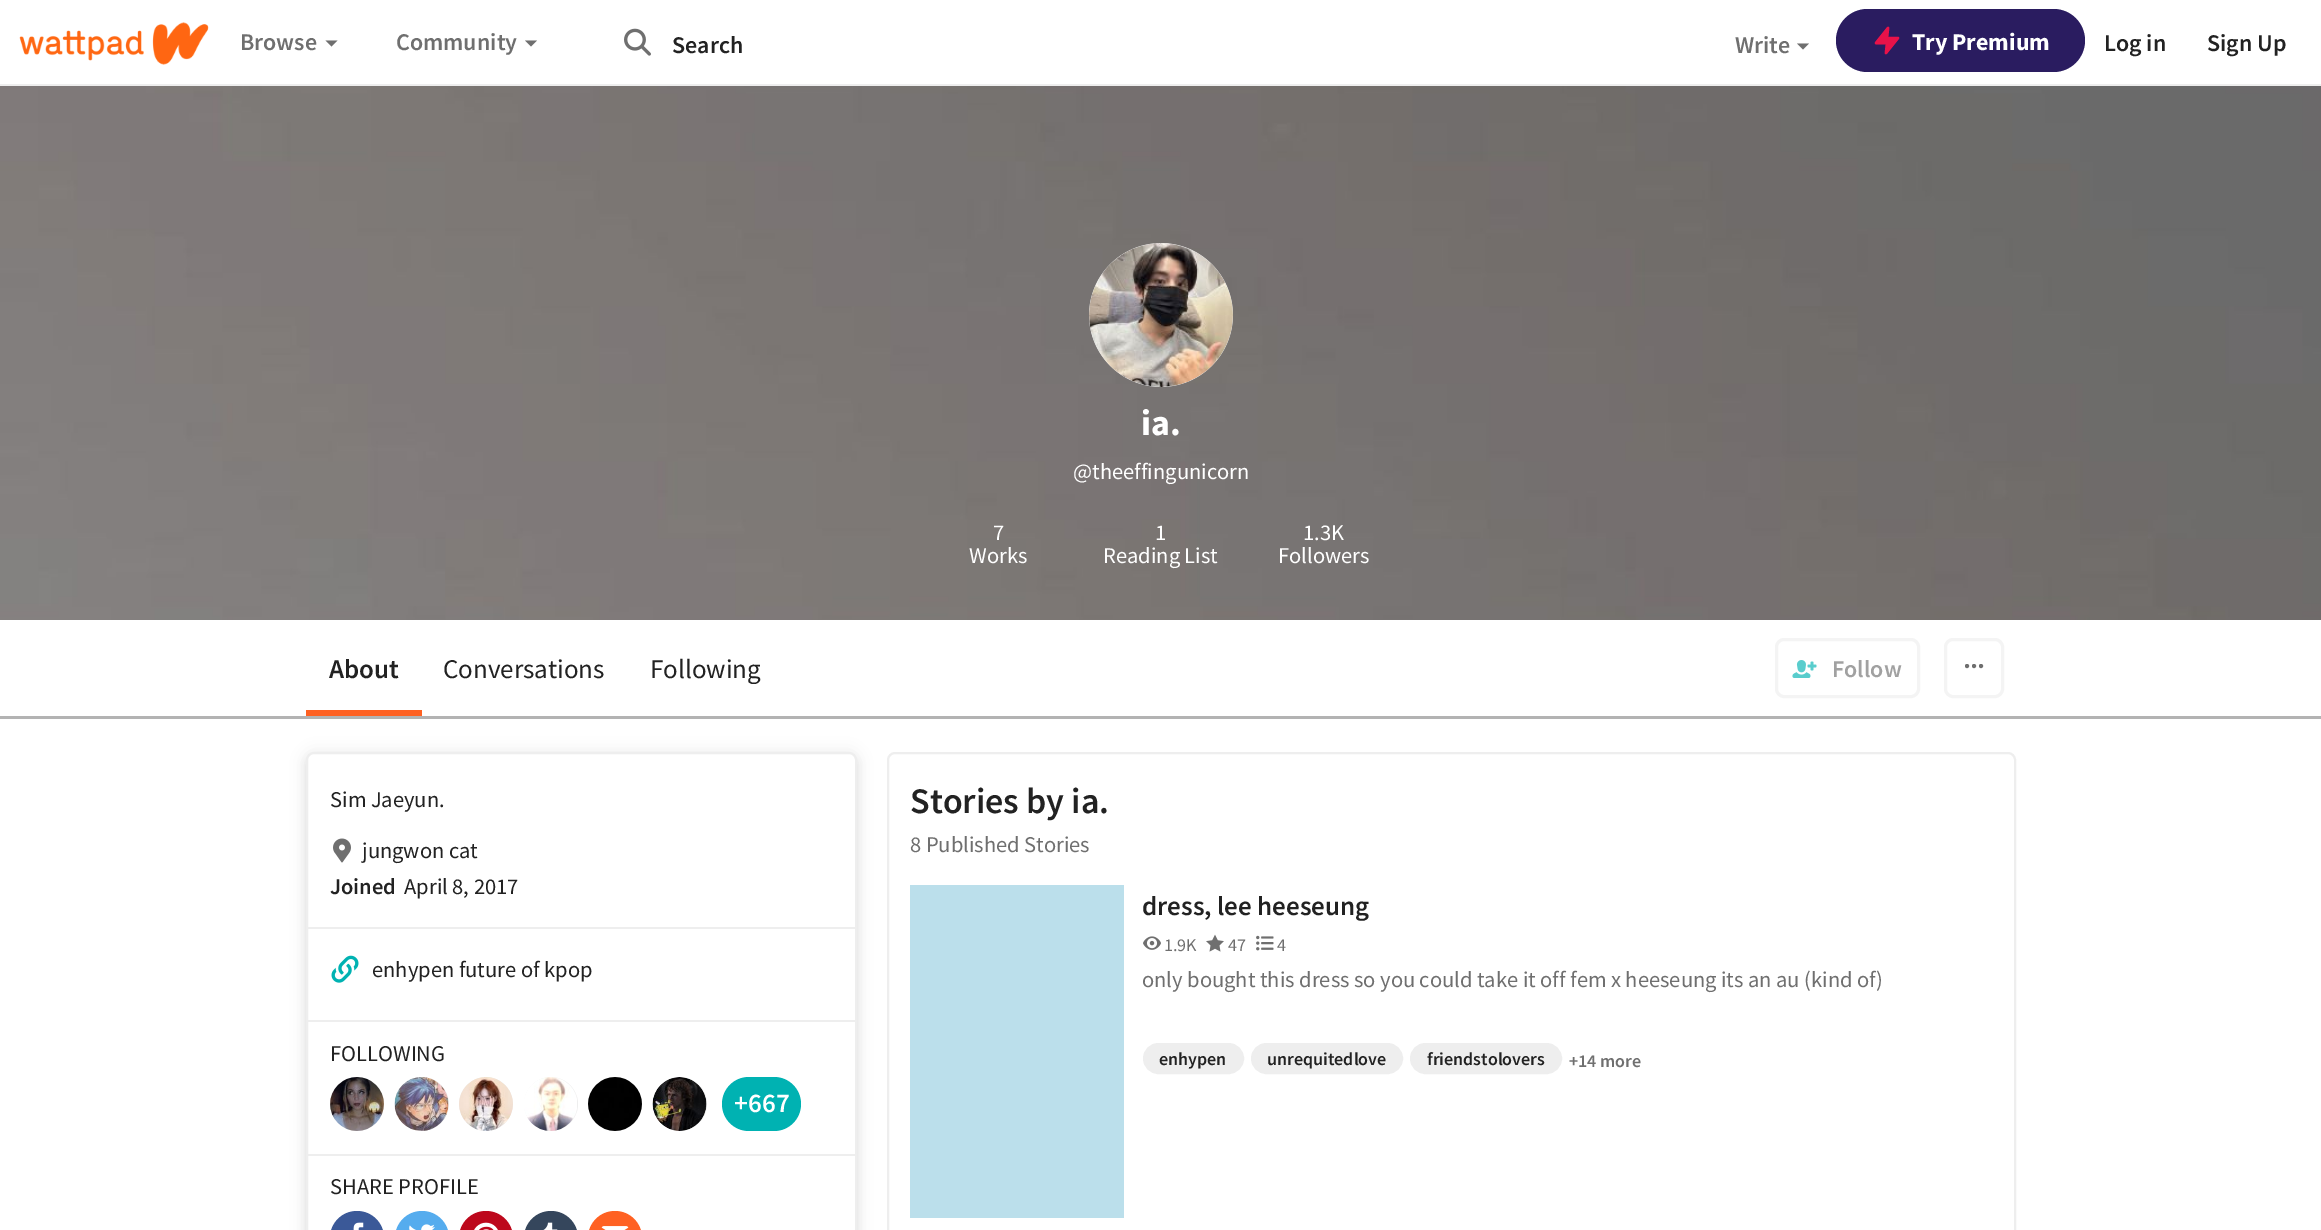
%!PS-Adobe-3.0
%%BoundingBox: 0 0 2321 1230
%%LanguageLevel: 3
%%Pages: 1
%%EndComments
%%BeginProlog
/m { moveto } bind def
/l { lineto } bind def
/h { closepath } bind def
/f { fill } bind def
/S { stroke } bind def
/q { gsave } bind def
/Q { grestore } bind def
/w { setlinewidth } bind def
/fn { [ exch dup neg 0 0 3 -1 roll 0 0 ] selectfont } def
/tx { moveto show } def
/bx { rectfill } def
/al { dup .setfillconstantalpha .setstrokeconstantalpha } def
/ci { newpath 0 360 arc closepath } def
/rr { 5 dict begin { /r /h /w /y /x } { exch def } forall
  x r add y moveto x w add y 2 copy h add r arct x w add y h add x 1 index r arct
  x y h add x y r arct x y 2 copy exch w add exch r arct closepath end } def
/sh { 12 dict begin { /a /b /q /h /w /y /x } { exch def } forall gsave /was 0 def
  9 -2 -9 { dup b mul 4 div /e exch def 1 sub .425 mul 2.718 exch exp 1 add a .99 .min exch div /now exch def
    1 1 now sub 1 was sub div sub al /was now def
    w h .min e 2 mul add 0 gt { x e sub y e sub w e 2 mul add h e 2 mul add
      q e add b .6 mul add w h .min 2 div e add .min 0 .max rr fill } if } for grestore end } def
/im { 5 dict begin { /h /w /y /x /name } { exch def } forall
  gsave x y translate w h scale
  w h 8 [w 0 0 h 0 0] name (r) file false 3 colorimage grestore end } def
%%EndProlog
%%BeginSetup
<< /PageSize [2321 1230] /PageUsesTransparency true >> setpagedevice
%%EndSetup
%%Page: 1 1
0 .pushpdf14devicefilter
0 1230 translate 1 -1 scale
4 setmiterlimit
1 setgray
0 0 2321 1230 bx
0.933 setgray
0 84 2321 2 bx
(image0.raw) 19 22 190 43 im
/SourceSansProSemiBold-SemiBold 24 fn
0.435 setgray
(Browse) 240 50 tx
325.5 40.5 m 337.5 40.5 l 331.5 46.5 l h f
(Community) 396 50 tx
525 40.5 m 537 40.5 l 531 46.5 l h f
(image1.raw) 624 28 27 28 im
0.133 setgray
(Search) 672 53 tx
0.435 setgray
(Write) 1735 53 tx
1797 43.5 m 1809 43.5 l 1803 49.5 l h f
0.165 0.11 0.376 setrgbcolor
1836 9 249 63 31.5 rr f
0.91 0.071 0.286 setrgbcolor
1888 28 m 1876 43 l 1887 43 l 1886 53 l 1898 38 l 1887 38 l h q f Q
2.5 w
1 setlinecap
1 setlinejoin
S
/SourceSansPro-Bold 24 fn
1 setgray
(Try Premium) 1912 50 tx
/SourceSansProSemiBold-SemiBold 24 fn
0.133 setgray
(Log in) 2104 51 tx
(Sign Up) 2207 51 tx
(image2.raw) 0 86 2321 534 im
0.933 setgray
1161 315 72 ci f
(image3.raw) 1089 243 144 144 im
/SourceSansPro-Bold 36 fn
1 setgray
(ia.) 1141 435 tx
/SourceSansPro-Regular 22.5 fn
(@theeffingunicorn) 1073 479 tx
(7) 993 540 tx
(Works) 969 563 tx
(1) 1155 540 tx
(Reading List) 1103 563 tx
(1.3K) 1303 540 tx
(Followers) 1278 563 tx
0.702 setgray
0 716 2321 3 bx
1 0.38 0.133 setrgbcolor
306 710 116 6 bx
/SourceSansProSemiBold-SemiBold 27 fn
0.133 setgray
(About) 329 678 tx
/SourceSansPro-Regular 27 fn
(Conversations) 443 678 tx
(Following) 650 678 tx
0.957 setgray
3 w
0 setlinecap
0 setlinejoin
1776.5 639.5 142 57 7.5 rr S
(image4.raw) 1792 660 25 18 im
/SourceSansProSemiBold-SemiBold 24 fn
0.631 setgray
(Follow) 1832 677 tx
0.957 setgray
1945.5 639.5 57 57 7.5 rr S
0.435 setgray
2 w
1967 666 1 ci S
1974 666 1 ci S
1981 666 1 ci S
0.133 setgray
306 758 551 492 8 4 0.1 sh
306 753 551 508 8 7.5 0.08 sh
1 setgray
307 753 549 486 7 rr q f Q
0.933 setgray
S
/SourceSansPro-Regular 22.5 fn
0.133 setgray
(Sim Jaeyun.) 330 807 tx
(image5.raw) 333 838 18 25 im
(jungwon cat) 362 858 tx
/SourceSansProSemiBold-SemiBold 22.5 fn
(Joined) 330 894 tx
/SourceSansPro-Regular 22.5 fn
(April 8, 2017) 404 894 tx
0.933 setgray
308 927 547 2 bx
(image6.raw) 331 955 28 28 im
0.133 setgray
(enhypen future of kpop) 372 977 tx
0.933 setgray
308 1020 547 2 bx
0.133 setgray
(FOLLOWING) 330 1061 tx
0.933 setgray
357 1104 27 ci f
(image7.raw) 330 1077 54 54 im
422 1104 27 ci f
(image8.raw) 394 1077 55 54 im
486 1104 27 ci f
(image9.raw) 459 1077 54 54 im
551 1104 27 ci f
(image10.raw) 524 1077 53 54 im
615 1104 27 ci f
(image11.raw) 588 1077 54 54 im
680 1104 27 ci f
(image12.raw) 652 1077 55 54 im
0 0.698 0.698 setrgbcolor
722 1077 79 54 27 rr f
/SourceSansProSemiBold-SemiBold 27 fn
1 setgray
(+667) 734 1112 tx
0.933 setgray
308 1154 547 2 bx
/SourceSansPro-Regular 22.5 fn
0.133 setgray
(SHARE PROFILE) 330 1194 tx
0.231 0.349 0.596 setrgbcolor
330 1211 54 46 27 rr f
(image13.raw) 353 1222 11 8 im
0.333 0.675 0.933 setrgbcolor
395 1211 54 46 27 rr f
(image14.raw) 409 1224 26 6 im
0.741 0.031 0.11 setrgbcolor
459 1211 54 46 27 rr f
(image15.raw) 474 1222 24 8 im
0.208 0.275 0.361 setrgbcolor
524 1211 54 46 27 rr f
(image16.raw) 543 1222 15 8 im
1 0.38 0.133 setrgbcolor
588 1211 54 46 27 rr f
(image17.raw) 601 1226 28 4 im
0.933 setgray
888 753 1127 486 7 rr S
/SourceSansProSemiBold-SemiBold 36 fn
0.133 setgray
(Stories by ia.) 910 813 tx
/SourceSansPro-Regular 22.5 fn
0.435 setgray
(8 Published Stories) 910 852 tx
0.733 0.875 0.922 setrgbcolor
910 885 214 333 bx
/SourceSansProSemiBold-SemiBold 27 fn
0.133 setgray
(dress, lee heeseung) 1142 915 tx
(image18.raw) 1143 936 18 14 im
/SourceSansPro-Regular 18 fn
0.435 setgray
(1.9K) 1164 951 tx
(image19.raw) 1206 934 18 18 im
(47) 1228 951 tx
(image20.raw) 1256 935 18 16 im
(4) 1277 951 tx
/SourceSansPro-Regular 22.5 fn
(only bought this dress so you could take it off fem x heeseung its an au \(kind of\)) 1142 987 tx
0.933 setgray
1144 1044 99 29 14.5 rr q f Q
S
/SourceSansProSemiBold-SemiBold 18 fn
0.133 setgray
(enhypen) 1159 1065 tx
0.933 setgray
1252 1044 150 29 14.5 rr q f Q
S
0.133 setgray
(unrequitedlove) 1267 1065 tx
0.933 setgray
1411 1044 150 29 14.5 rr q f Q
S
0.133 setgray
(friendstolovers) 1427 1065 tx
0.435 setgray
(+14 more) 1569 1067 tx
.poppdf14devicefilter showpage
%%EOF
